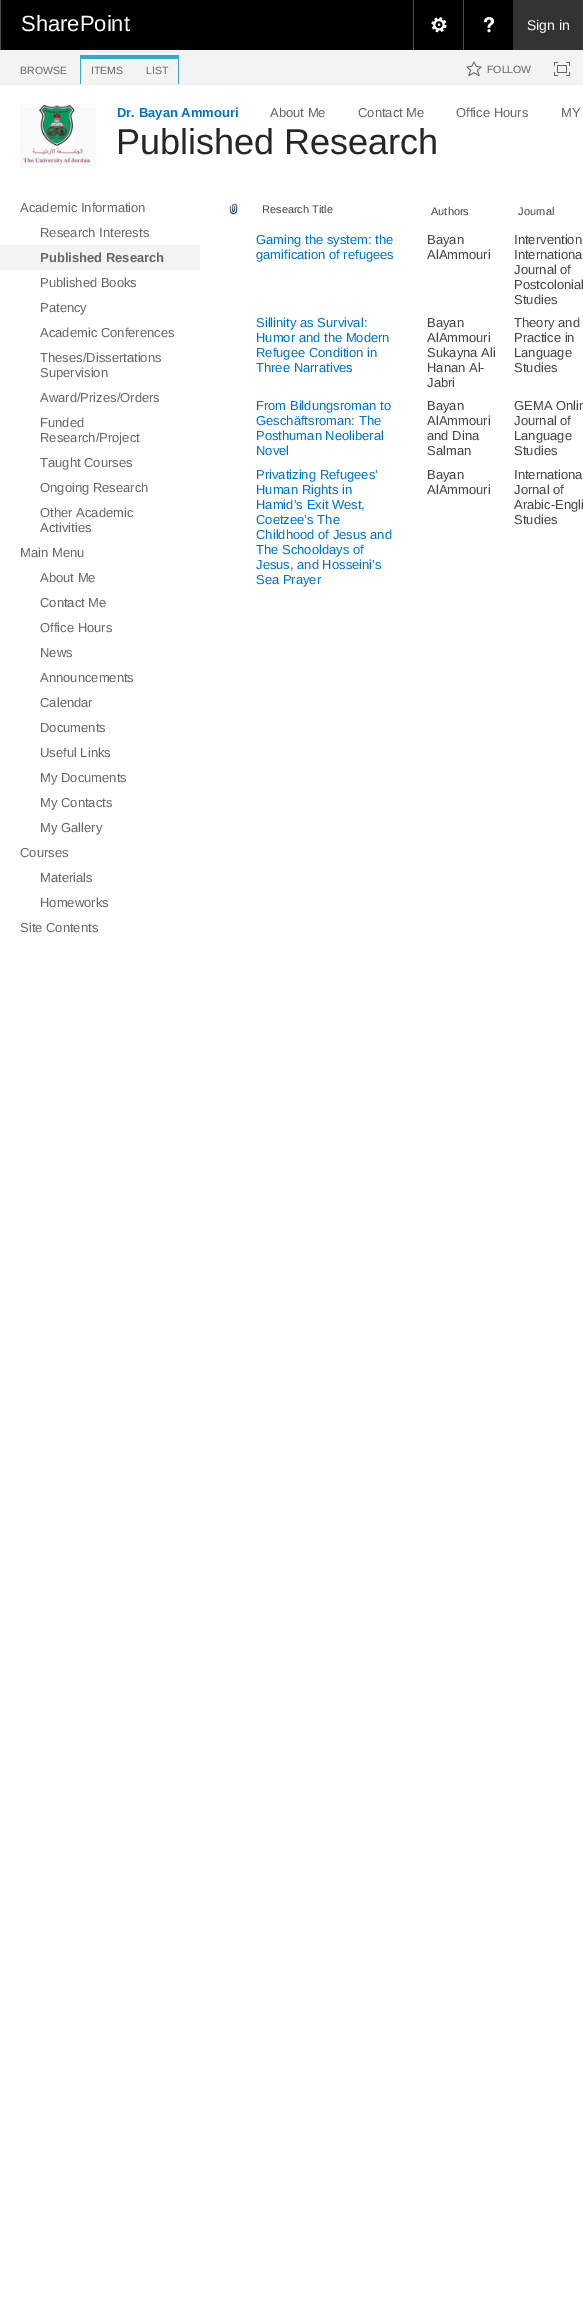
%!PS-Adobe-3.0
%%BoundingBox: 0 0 583 2305
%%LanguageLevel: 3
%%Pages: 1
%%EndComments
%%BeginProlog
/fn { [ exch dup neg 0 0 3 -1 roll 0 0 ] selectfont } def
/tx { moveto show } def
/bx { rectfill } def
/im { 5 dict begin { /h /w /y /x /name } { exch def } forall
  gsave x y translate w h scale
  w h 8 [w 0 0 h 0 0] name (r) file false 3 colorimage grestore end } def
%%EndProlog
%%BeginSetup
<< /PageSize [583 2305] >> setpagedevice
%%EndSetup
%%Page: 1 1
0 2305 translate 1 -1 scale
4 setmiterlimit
1 setgray
0 0 583 2305 bx
0 setgray
1 0 512 50 bx
0.302 setgray
0 0 1 50 bx
/LiberationSans-Regular 22 fn
1 setgray
(SharePoint) 21 31 tx
0.302 setgray
413 0 1 50 bx
(image0.raw) 431 17 16 16 im
463 0 1 50 bx
(image1.raw) 483 17 12 16 im
0.2 setgray
513 0 70 50 bx
/LiberationSans-Regular 14 fn
1 setgray
(Sign in) 527 30 tx
0.953 setgray
0 50 583 34 bx
0.941 setgray
0 84 583 1 bx
/LiberationSans-Regular 10.5 fn
0.4 setgray
(BROWSE) 20 74 tx
0.212 0.655 0.792 setrgbcolor
80 55 99 4 bx
80 59 1 25 bx
0.4 setgray
(ITEMS) 91 74 tx
0.212 0.655 0.792 setrgbcolor
178 59 1 25 bx
0.4 setgray
(LIST) 146 74 tx
(image2.raw) 466 61 16 16 im
(FOLLOW) 487 73 tx
(image3.raw) 554 62 16 14 im
(image4.raw) 20 104 76 64 im
/LiberationSans-Bold 13 fn
0 0.447 0.776 setrgbcolor
(Dr. Bayan Ammouri) 117 117 tx
/LiberationSans-Regular 13 fn
0.4 setgray
(About Me) 270 117 tx
(Contact Me) 358 117 tx
(Office Hours) 456 117 tx
(MY) 561 117 tx
/LiberationSans-Regular 36 fn
0.149 setgray
(Published Research) 116 154 tx
/LiberationSans-Regular 13 fn
0.4 setgray
(Academic Information) 20 212 tx
(Research Interests) 40 237 tx
0.953 setgray
0 245 200 25 bx
/LiberationSans-Bold 13 fn
0.4 setgray
(Published Research) 40 262 tx
/LiberationSans-Regular 13 fn
(Published Books) 40 287 tx
(Patency) 40 312 tx
(Academic Conferences) 40 337 tx
(Theses/Dissertations) 40 362 tx
(Supervision) 40 377 tx
(Award/Prizes/Orders) 40 402 tx
(Funded) 40 427 tx
(Research/Project) 40 442 tx
(Taught Courses) 40 467 tx
(Ongoing Research) 40 492 tx
(Other Academic) 40 517 tx
(Activities) 40 532 tx
(Main Menu) 20 557 tx
(About Me) 40 582 tx
(Contact Me) 40 607 tx
(Office Hours) 40 632 tx
(News) 40 657 tx
(Announcements) 40 682 tx
(Calendar) 40 707 tx
(Documents) 40 732 tx
(Useful Links) 40 757 tx
(My Documents) 40 782 tx
(My Contacts) 40 807 tx
(My Gallery) 40 832 tx
(Courses) 20 857 tx
(Materials) 40 882 tx
(Homeworks) 40 907 tx
(Site Contents) 20 932 tx
(image5.raw) 229 203 9 12 im
/LiberationSans-Regular 11 fn
0.267 setgray
(Research Title) 262 213 tx
(Authors) 431 215 tx
(Journal) 518 215 tx
/LiberationSans-Regular 13 fn
0 0.447 0.776 setrgbcolor
(Gaming the system: the) 256 244 tx
(gamification of refugees) 256 259 tx
0.267 setgray
(Bayan) 427 244 tx
(AlAmmouri) 427 259 tx
(Intervention) 514 244 tx
(Internationa) 514 259 tx
(Journal of) 514 274 tx
(Postcolonial) 514 289 tx
(Studies) 514 304 tx
0 0.447 0.776 setrgbcolor
(Sillinity as Survival:) 256 327 tx
(Humor and the Modern) 256 342 tx
(Refugee Condition in) 256 357 tx
(Three Narratives) 256 372 tx
0.267 setgray
(Bayan) 427 327 tx
(AlAmmouri) 427 342 tx
(Sukayna Ali) 427 357 tx
(Hanan Al-) 427 372 tx
(Jabri) 427 387 tx
(Theory and) 514 327 tx
(Practice in) 514 342 tx
(Language) 514 357 tx
(Studies) 514 372 tx
0 0.447 0.776 setrgbcolor
(From Bildungsroman to) 256 410 tx
(Geschäftsroman: The) 256 425 tx
(Posthuman Neoliberal) 256 440 tx
(Novel) 256 455 tx
0.267 setgray
(Bayan) 427 410 tx
(AlAmmouri) 427 425 tx
(and Dina) 427 440 tx
(Salman) 427 455 tx
(GEMA Onlin) 514 410 tx
(Journal of) 514 425 tx
(Language) 514 440 tx
(Studies) 514 455 tx
0 0.447 0.776 setrgbcolor
(Privatizing Refugees’) 256 479 tx
(Human Rights in) 256 494 tx
(Hamid’s Exit West,) 256 509 tx
(Coetzee’s The) 256 524 tx
(Childhood of Jesus and) 256 539 tx
(The Schooldays of) 256 554 tx
(Jesus, and Hosseini’s) 256 569 tx
(Sea Prayer) 256 584 tx
0.267 setgray
(Bayan) 427 479 tx
(AlAmmouri) 427 494 tx
(Internationa) 514 479 tx
(Jornal of) 514 494 tx
(Arabic-Engli) 514 509 tx
(Studies) 514 524 tx
showpage
%%EOF
